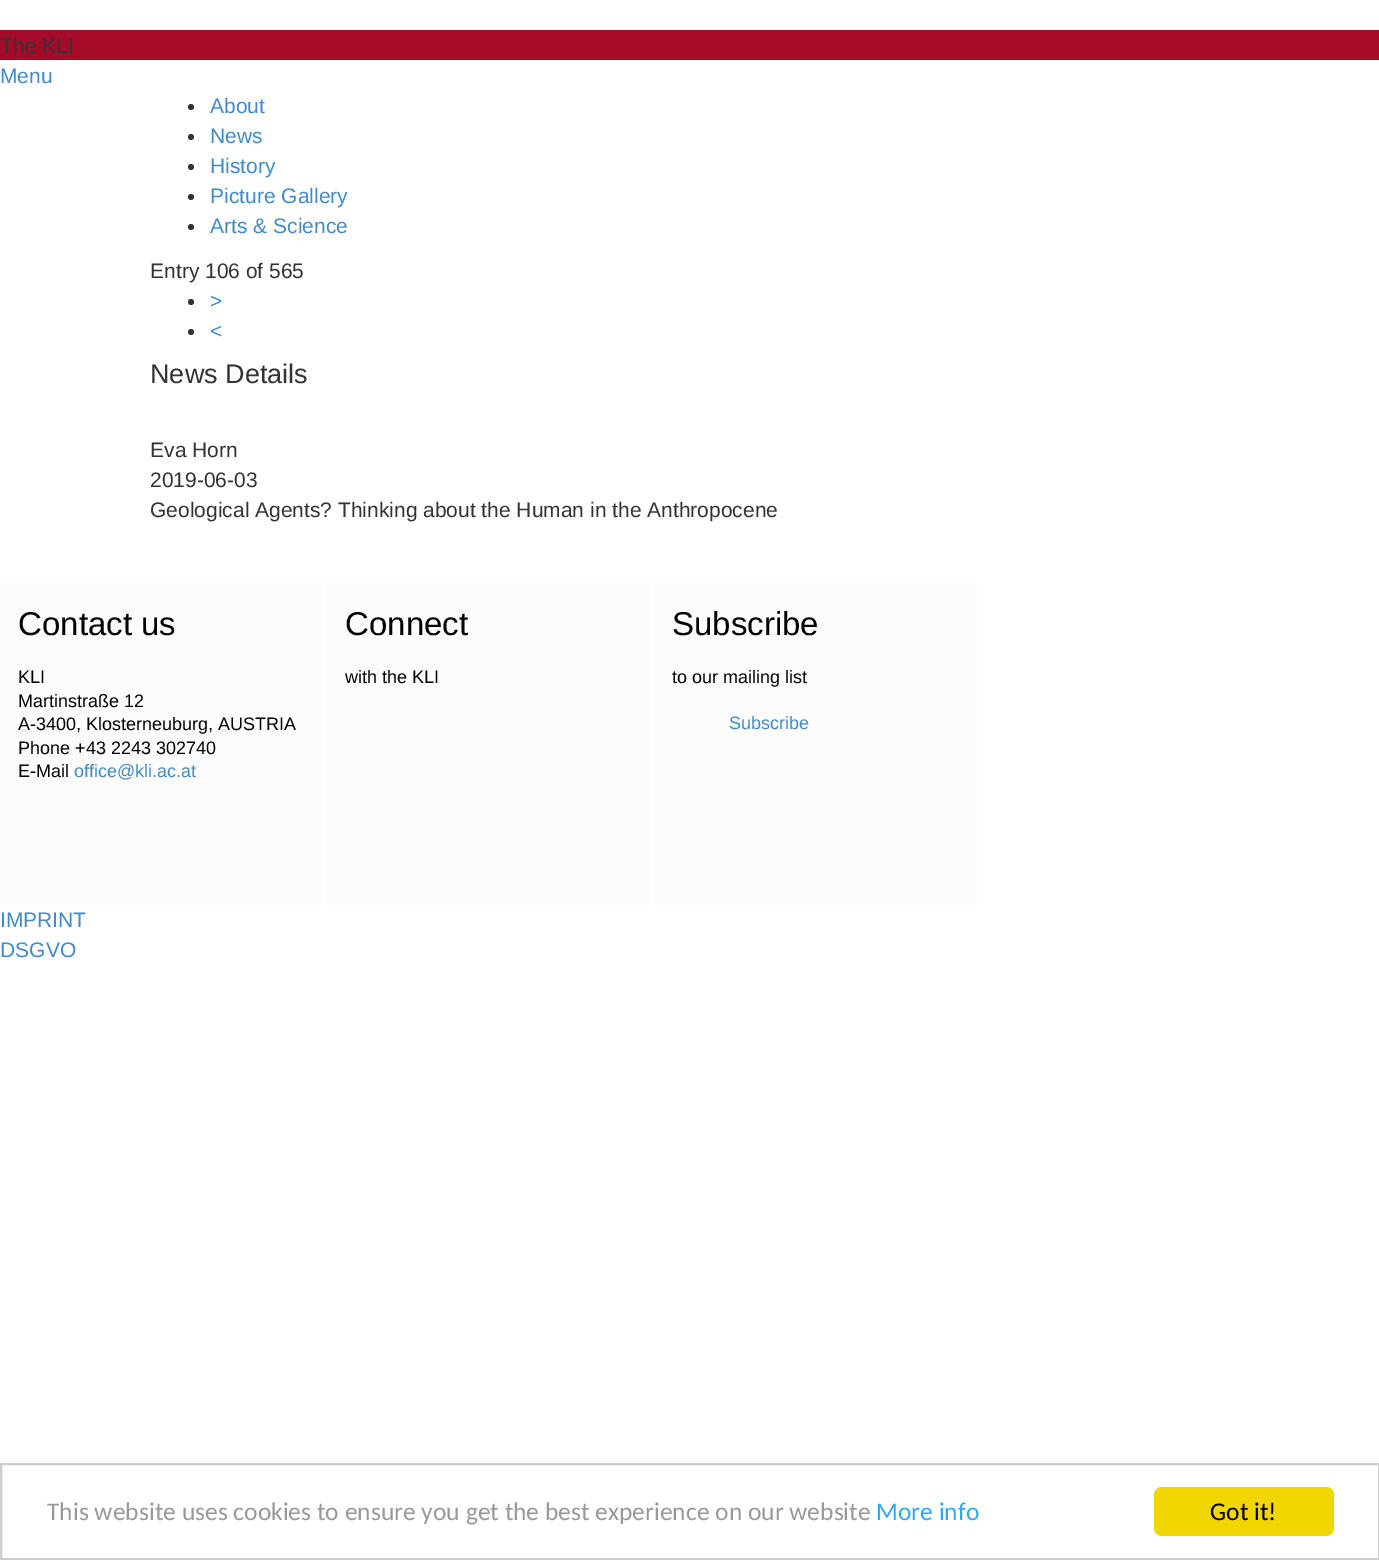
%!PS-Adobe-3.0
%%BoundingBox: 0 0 1379 1560
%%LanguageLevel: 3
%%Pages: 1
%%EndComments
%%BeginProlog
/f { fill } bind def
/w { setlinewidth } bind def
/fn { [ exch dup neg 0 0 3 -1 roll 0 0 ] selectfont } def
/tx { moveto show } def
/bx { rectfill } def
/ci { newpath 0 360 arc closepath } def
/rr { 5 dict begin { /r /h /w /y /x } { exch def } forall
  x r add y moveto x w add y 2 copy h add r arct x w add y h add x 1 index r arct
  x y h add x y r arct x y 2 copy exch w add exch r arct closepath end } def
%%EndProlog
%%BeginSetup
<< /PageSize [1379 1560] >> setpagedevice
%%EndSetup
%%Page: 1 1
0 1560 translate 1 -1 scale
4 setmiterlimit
1 setgray
0 0 1379 1560 bx
0.647 0.039 0.157 setrgbcolor
0 30 1379 30 bx
/LiberationSans-Regular 21 fn
0.2 setgray
(The KLI) 0 53 tx
0.259 0.545 0.792 setrgbcolor
(Menu) 0 83 tx
0.2 setgray
191 107 3 ci f
0.259 0.545 0.792 setrgbcolor
(About) 210 113 tx
0.2 setgray
191 137 3 ci f
0.259 0.545 0.792 setrgbcolor
(News) 210 143 tx
0.2 setgray
191 167 3 ci f
0.259 0.545 0.792 setrgbcolor
(History) 210 173 tx
0.2 setgray
191 197 3 ci f
0.259 0.545 0.792 setrgbcolor
(Picture Gallery) 210 203 tx
0.2 setgray
191 227 3 ci f
0.259 0.545 0.792 setrgbcolor
(Arts & Science) 210 233 tx
0.2 setgray
(Entry 106 of 565) 150 278 tx
191 302 3 ci f
0.259 0.545 0.792 setrgbcolor
(>) 210 308 tx
0.2 setgray
191 332 3 ci f
0.259 0.545 0.792 setrgbcolor
(<) 210 338 tx
/LiberationSans-Regular 27 fn
0.2 setgray
(News Details) 150 383 tx
/LiberationSans-Regular 21 fn
(Eva Horn) 150 457 tx
(2019-06-03) 150 487 tx
(Geological Agents? Thinking about the Human in the Anthropocene) 150 517 tx
0.988 setgray
0 582 323 323 bx
/LiberationSans-Regular 33 fn
0 setgray
(Contact us) 18 635 tx
/LiberationSans-Regular 18 fn
(KLI) 18 683 tx
(Martinstraße 12) 18 707 tx
(A-3400, Klosterneuburg, AUSTRIA) 18 730 tx
(Phone +43 2243 302740) 18 754 tx
(E-Mail) 18 777 tx
0.259 0.545 0.792 setrgbcolor
(office@kli.ac.at) 74 777 tx
0.988 setgray
327 582 323 323 bx
/LiberationSans-Regular 33 fn
0 setgray
(Connect) 345 635 tx
/LiberationSans-Regular 18 fn
(with the KLI) 345 683 tx
0.988 setgray
654 582 323 323 bx
/LiberationSans-Regular 33 fn
0 setgray
(Subscribe) 672 635 tx
/LiberationSans-Regular 18 fn
(to our mailing list) 672 683 tx
0.259 0.545 0.792 setrgbcolor
(Subscribe) 729 729 tx
/LiberationSans-Regular 21 fn
(IMPRINT) 0 927 tx
(DSGVO) 0 957 tx
0.8 setgray
2 w
1 1464 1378 95 rectstroke
/Carlito-Regular 25.5 fn
0.6 setgray
(This website uses cookies to ensure you get the best experience on our website) 47 1520 tx
0.192 0.659 0.941 setrgbcolor
(More info) 876 1520 tx
0.945 0.839 0 setrgbcolor
1154 1487 180 49 8 rr f
0 setgray
(Got it!) 1210 1520 tx
showpage
%%EOF
